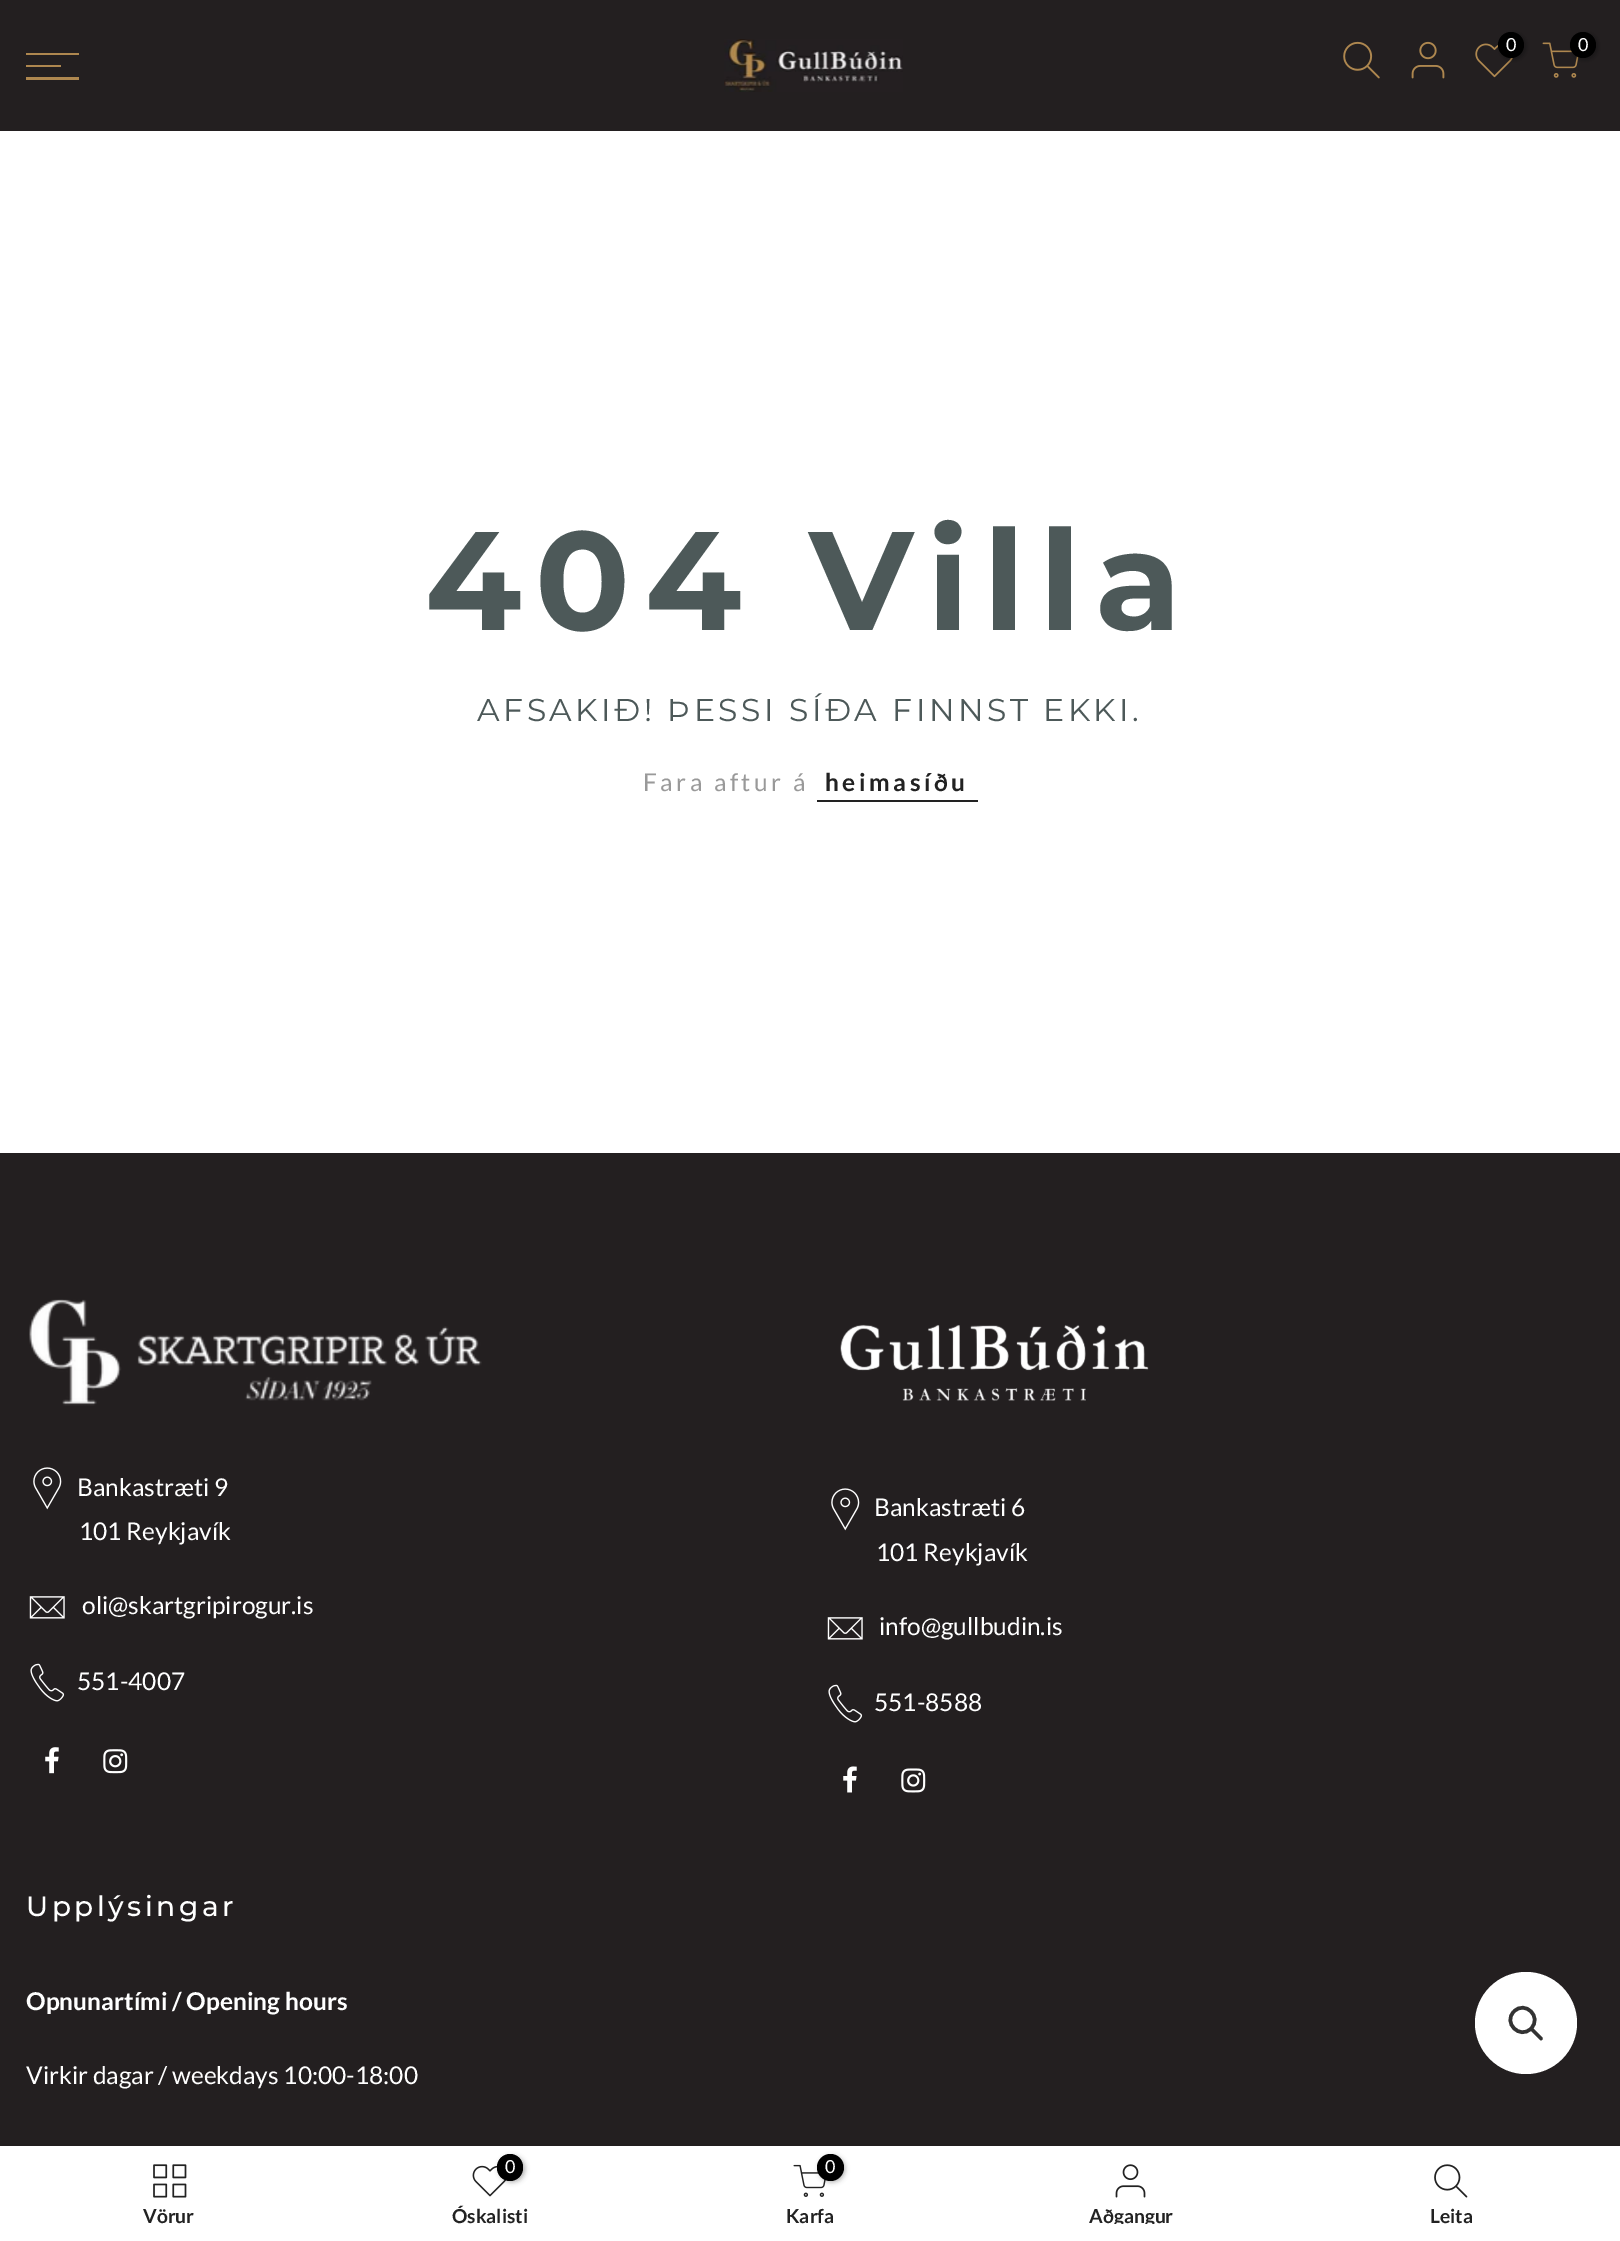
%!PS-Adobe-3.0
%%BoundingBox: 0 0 1620 2241
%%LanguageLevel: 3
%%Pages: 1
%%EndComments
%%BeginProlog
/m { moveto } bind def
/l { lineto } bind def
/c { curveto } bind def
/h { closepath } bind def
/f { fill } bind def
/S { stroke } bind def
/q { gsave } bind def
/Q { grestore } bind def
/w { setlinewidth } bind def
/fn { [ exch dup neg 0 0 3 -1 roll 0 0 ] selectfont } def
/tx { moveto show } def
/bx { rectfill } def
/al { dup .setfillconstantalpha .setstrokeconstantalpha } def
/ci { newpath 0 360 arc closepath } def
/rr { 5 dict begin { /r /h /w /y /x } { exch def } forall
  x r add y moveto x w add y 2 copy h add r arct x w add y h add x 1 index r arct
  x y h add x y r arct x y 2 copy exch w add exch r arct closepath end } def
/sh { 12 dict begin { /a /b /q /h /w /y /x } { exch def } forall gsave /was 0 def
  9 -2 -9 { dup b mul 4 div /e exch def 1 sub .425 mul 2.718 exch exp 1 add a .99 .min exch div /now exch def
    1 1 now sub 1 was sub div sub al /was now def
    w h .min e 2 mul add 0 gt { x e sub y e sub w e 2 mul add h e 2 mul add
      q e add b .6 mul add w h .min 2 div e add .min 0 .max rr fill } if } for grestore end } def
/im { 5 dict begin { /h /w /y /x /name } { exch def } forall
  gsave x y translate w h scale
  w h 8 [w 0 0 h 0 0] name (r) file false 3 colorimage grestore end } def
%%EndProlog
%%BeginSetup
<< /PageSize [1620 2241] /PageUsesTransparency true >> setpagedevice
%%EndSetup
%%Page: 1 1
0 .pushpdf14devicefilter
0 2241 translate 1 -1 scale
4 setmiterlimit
1 setgray
0 0 1620 2241 bx
0.137 0.122 0.125 setrgbcolor
0 0 1620 131 bx
0.682 0.529 0.31 setrgbcolor
26 53 53 2 bx
26 65 35 2 bx
26 77 53 3 bx
(image0.raw) 724 39 179 53 im
(image1.raw) 1343 41 37 38 im
(image2.raw) 1411 41 34 38 im
(image3.raw) 1475 43 39 35 im
0 setgray
1500 33 26 27 13 2.5 0.3 sh
1511 45 13 ci f
/Lato-Regular 18 fn
1 setgray
(0) 1506 51 tx
(image4.raw) 1542 42 37 36 im
0 setgray
1572 33 26 27 13 2.5 0.3 sh
1583 45 13 ci f
1 setgray
(0) 1578 51 tx
/Montserrat-Bold 140 fn
0.302 0.349 0.349 setrgbcolor
425 630 m 14 0 (404 Villa) ashow
/Montserrat-Regular 31.5 fn
477 721 m 3.5 0 (AFSAKIÐ! ÞESSI SÍÐA FINNST EKKI.) ashow
/Lato-Regular 24.5 fn
0.6 setgray
643 791 m 3.5 0 (Fara aftur á) ashow
/Lato-Bold 24.5 fn
0.133 setgray
825 791 m 3.5 0 (heimasíðu) ashow
817 800 161 2 bx
0.137 0.122 0.125 setrgbcolor
0 1153 1620 993 bx
(image5.raw) 29 1299 453 107 im
(image6.raw) 33 1467 29 43 im
/Lato-Regular 24.5 fn
1 setgray
(Bankastræti 9) 77 1496 tx
(101 Reykjavík) 79 1540 tx
(image7.raw) 29 1596 36 23 im
(oli@skartgripirogur.is) 82 1614 tx
(image8.raw) 30 1663 35 39 im
(551-4007) 77 1690 tx
(image9.raw) 45 1747 14 27 im
(image10.raw) 103 1749 25 25 im
(image11.raw) 840 1324 309 77 im
(image6.raw) 831 1488 29 43 im
(Bankastræti 6) 874 1516 tx
(101 Reykjavík) 876 1561 tx
(image7.raw) 827 1617 36 23 im
(info@gullbudin.is) 879 1635 tx
(image8.raw) 828 1684 35 39 im
(551-8588) 874 1711 tx
(image12.raw) 843 1766 14 27 im
(image13.raw) 901 1768 25 25 im
/Montserrat-Medium 28 fn
26 1916 m 3.5 0 (Upplýsingar) ashow
/Lato-Bold 24.5 fn
(Opnunartími / Opening hours) 26 2010 tx
/Lato-Regular 24.5 fn
(Virkir dagar / weekdays 10:00-18:00) 26 2084 tx
1526 2023 51 ci f
0.2 setgray
3.5 w
1514 2011.5 m 1525 2000 1542.5 2017 1531 2028.5 c 1520 2040 1502.5 2022.5 1514 2011.5 c h S
1530 2030 m 1532.5 2027.5 l 1542.5 2037.5 l 1543.5 2039.5 1541.5 2041 1540 2040 c h f
0 setgray
0 2146 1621 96 0 8 0.12 sh
1 setgray
0 2146 1620 95 bx
(image14.raw) 153 2164 34 34 im
/Lato-Bold 19.25 fn
0.133 setgray
(Vörur) 143 2223 tx
(image15.raw) 472 2165 35 32 im
0 setgray
499 2156 26 26 13 2.5 0.3 sh
497 2154 26 27 13 rr f
/Lato-Regular 18 fn
1 setgray
(0) 505 2173 tx
/Lato-Bold 19.25 fn
0.133 setgray
(Óskalisti) 452 2223 tx
(image16.raw) 793 2164 33 33 im
0 setgray
819 2156 26 26 13 2.5 0.3 sh
830.5 2167.5 13.5 ci f
/Lato-Regular 18 fn
1 setgray
(0) 825 2173 tx
/Lato-Bold 19.25 fn
0.133 setgray
(Karfa) 786 2223 tx
(image17.raw) 1115 2164 31 34 im
q
989 2205 285 19 rectclip
(Aðgangur) 1089 2223 tx
Q
(image18.raw) 1434 2164 34 34 im
(Leita) 1430 2223 tx
.poppdf14devicefilter showpage
%%EOF
